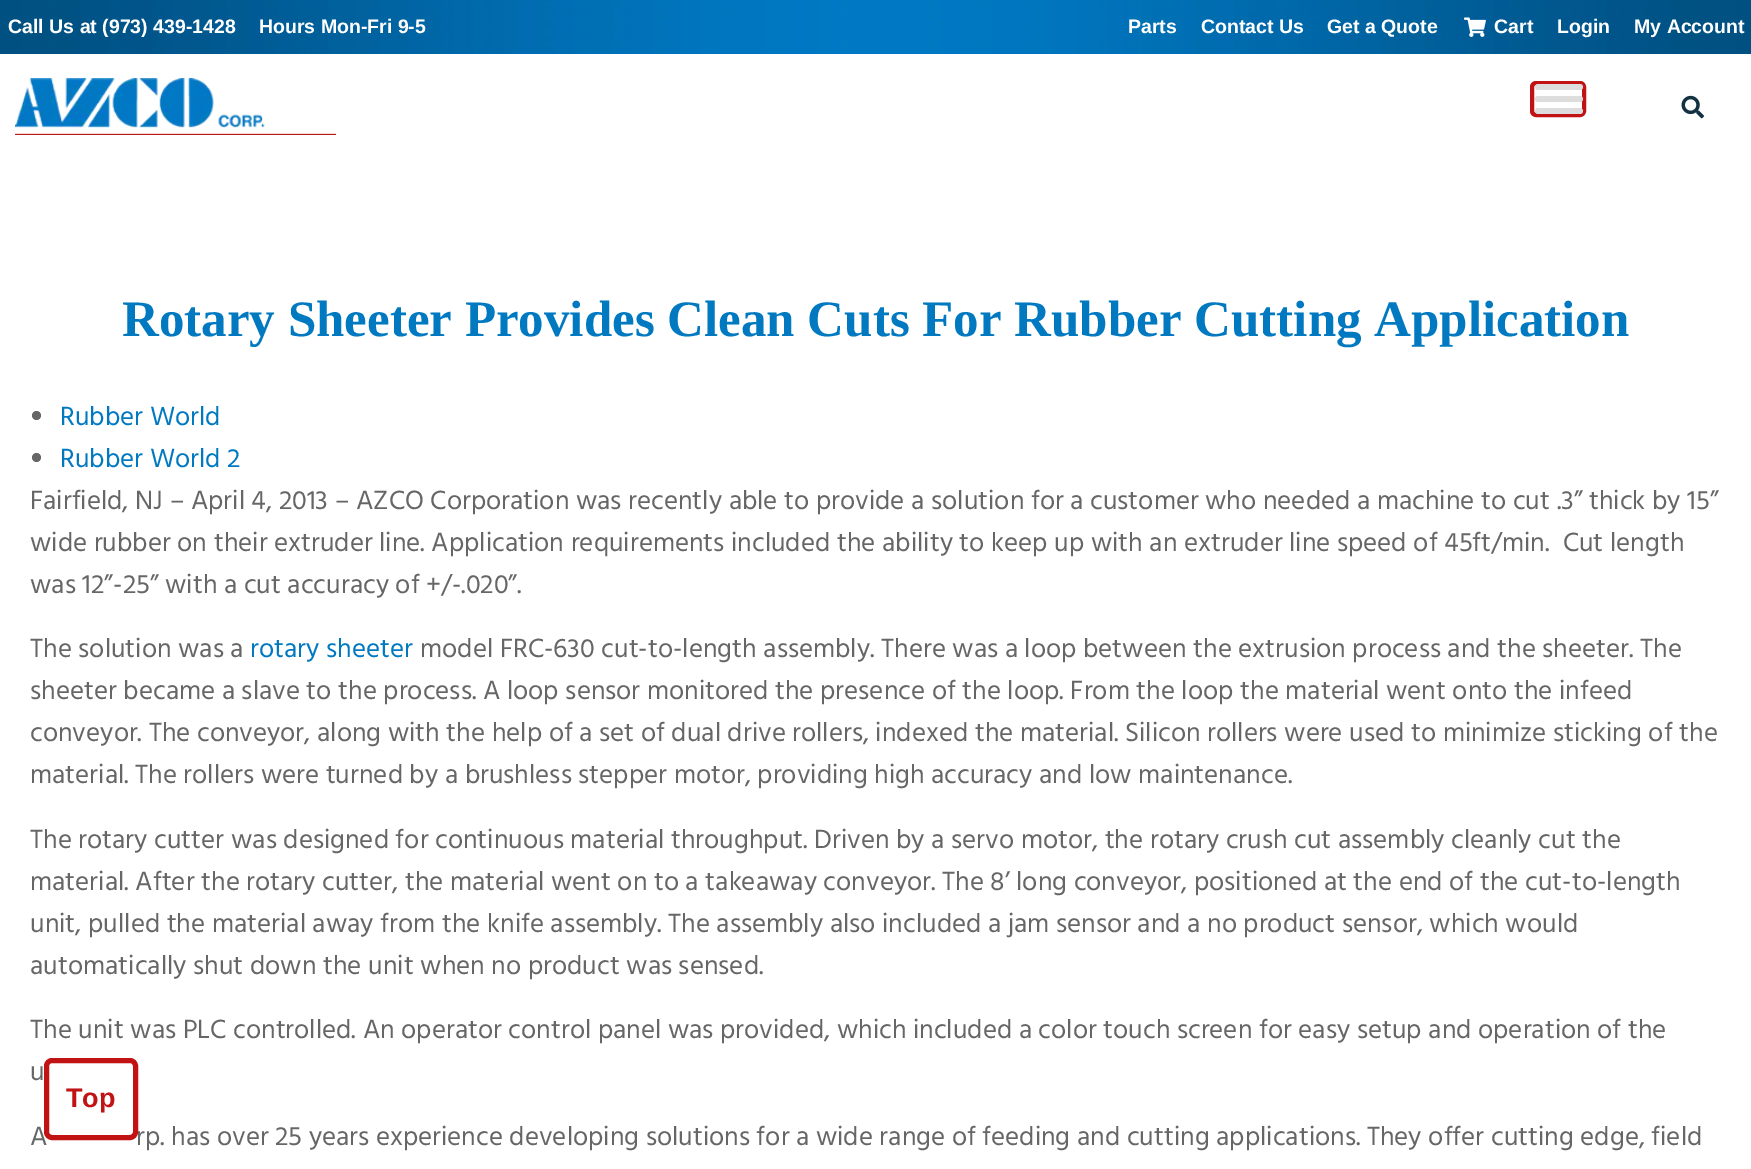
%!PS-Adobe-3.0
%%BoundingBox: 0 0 1751 1169
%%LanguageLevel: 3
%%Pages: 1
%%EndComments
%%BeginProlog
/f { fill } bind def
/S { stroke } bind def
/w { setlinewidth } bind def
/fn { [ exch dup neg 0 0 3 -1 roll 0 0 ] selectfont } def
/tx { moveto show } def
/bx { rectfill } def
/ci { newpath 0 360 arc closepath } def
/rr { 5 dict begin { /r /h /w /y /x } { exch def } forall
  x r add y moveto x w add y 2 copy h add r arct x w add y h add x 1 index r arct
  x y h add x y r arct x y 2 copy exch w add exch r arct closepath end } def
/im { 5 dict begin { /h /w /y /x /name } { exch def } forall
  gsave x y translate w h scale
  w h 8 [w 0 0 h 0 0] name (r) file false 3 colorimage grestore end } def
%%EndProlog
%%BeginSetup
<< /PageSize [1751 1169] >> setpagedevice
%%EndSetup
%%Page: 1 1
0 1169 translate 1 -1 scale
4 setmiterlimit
1 setgray
0 0 1751 1169 bx
(image0.raw) 0 0 1751 54 im
/LiberationSans-Bold 19.5 fn
(Call Us at \(973\) 439-1428) 8 33 tx
(Hours Mon-Fri 9-5) 259 33 tx
(Parts) 1128 33 tx
(Contact Us) 1201 33 tx
(Get a Quote) 1327 33 tx
(image1.raw) 1464 17 22 20 im
(Cart) 1494 33 tx
(Login) 1557 33 tx
(My Account) 1634 33 tx
(image2.raw) 15 78 321 57 im
0.761 0.075 0.078 setrgbcolor
4 w
1532 83 52 32 4 rr S
0.867 setgray
1535 84 48 6 3 rr f
1535 96 48 6 3 rr f
1535 108 48 6 3 rr f
(image3.raw) 1681 95 23 24 im
/LiberationSerif-Bold 51 fn
0 0.475 0.757 setrgbcolor
(Rotary Sheeter Provides Clean Cuts For Rubber Cutting Application) 122 336 tx
0.4 setgray
36.5 415.5 4.5 ci f
/Hind-Regular 27 fn
0 0.475 0.757 setrgbcolor
(Rubber World) 60 425 tx
0.4 setgray
36.5 457.5 4.5 ci f
0 0.475 0.757 setrgbcolor
(Rubber World 2) 60 467 tx
0.4 setgray
(Fairfield, NJ – April 4, 2013 – AZCO Corporation was recently able to provide a solution for a customer who needed a machine to cut .3” thick by 15”) 30 509 tx
(wide rubber on their extruder line. Application requirements included the ability to keep up with an extruder line speed of 45ft/min.  Cut length) 30 551 tx
(was 12”-25” with a cut accuracy of +/-.020”.) 30 593 tx
(The solution was a) 30 657 tx
0 0.475 0.757 setrgbcolor
(rotary sheeter) 250 657 tx
0.4 setgray
(model FRC-630 cut-to-length assembly. There was a loop between the extrusion process and the sheeter. The) 420 657 tx
(sheeter became a slave to the process. A loop sensor monitored the presence of the loop. From the loop the material went onto the infeed) 30 699 tx
(conveyor. The conveyor, along with the help of a set of dual drive rollers, indexed the material. Silicon rollers were used to minimize sticking of the) 30 741 tx
(material. The rollers were turned by a brushless stepper motor, providing high accuracy and low maintenance.) 30 783 tx
(The rotary cutter was designed for continuous material throughput. Driven by a servo motor, the rotary crush cut assembly cleanly cut the) 30 848 tx
(material. After the rotary cutter, the material went on to a takeaway conveyor. The 8’ long conveyor, positioned at the end of the cut-to-length) 30 890 tx
(unit, pulled the material away from the knife assembly. The assembly also included a jam sensor and a no product sensor, which would) 30 932 tx
(automatically shut down the unit when no product was sensed.) 30 974 tx
(The unit was PLC controlled. An operator control panel was provided, which included a color touch screen for easy setup and operation of the) 30 1038 tx
(u) 30 1080 tx
(A) 30 1145 tx
(rp. has over 25 years experience developing solutions for a wide range of feeding and cutting applications. They offer cutting edge, field) 136 1145 tx
0.761 0.075 0.078 setrgbcolor
5 w
46.5 1060.5 89 77 5.5 rr S
/LiberationSans-Bold 27 fn
(Top) 66 1107 tx
showpage
%%EOF
